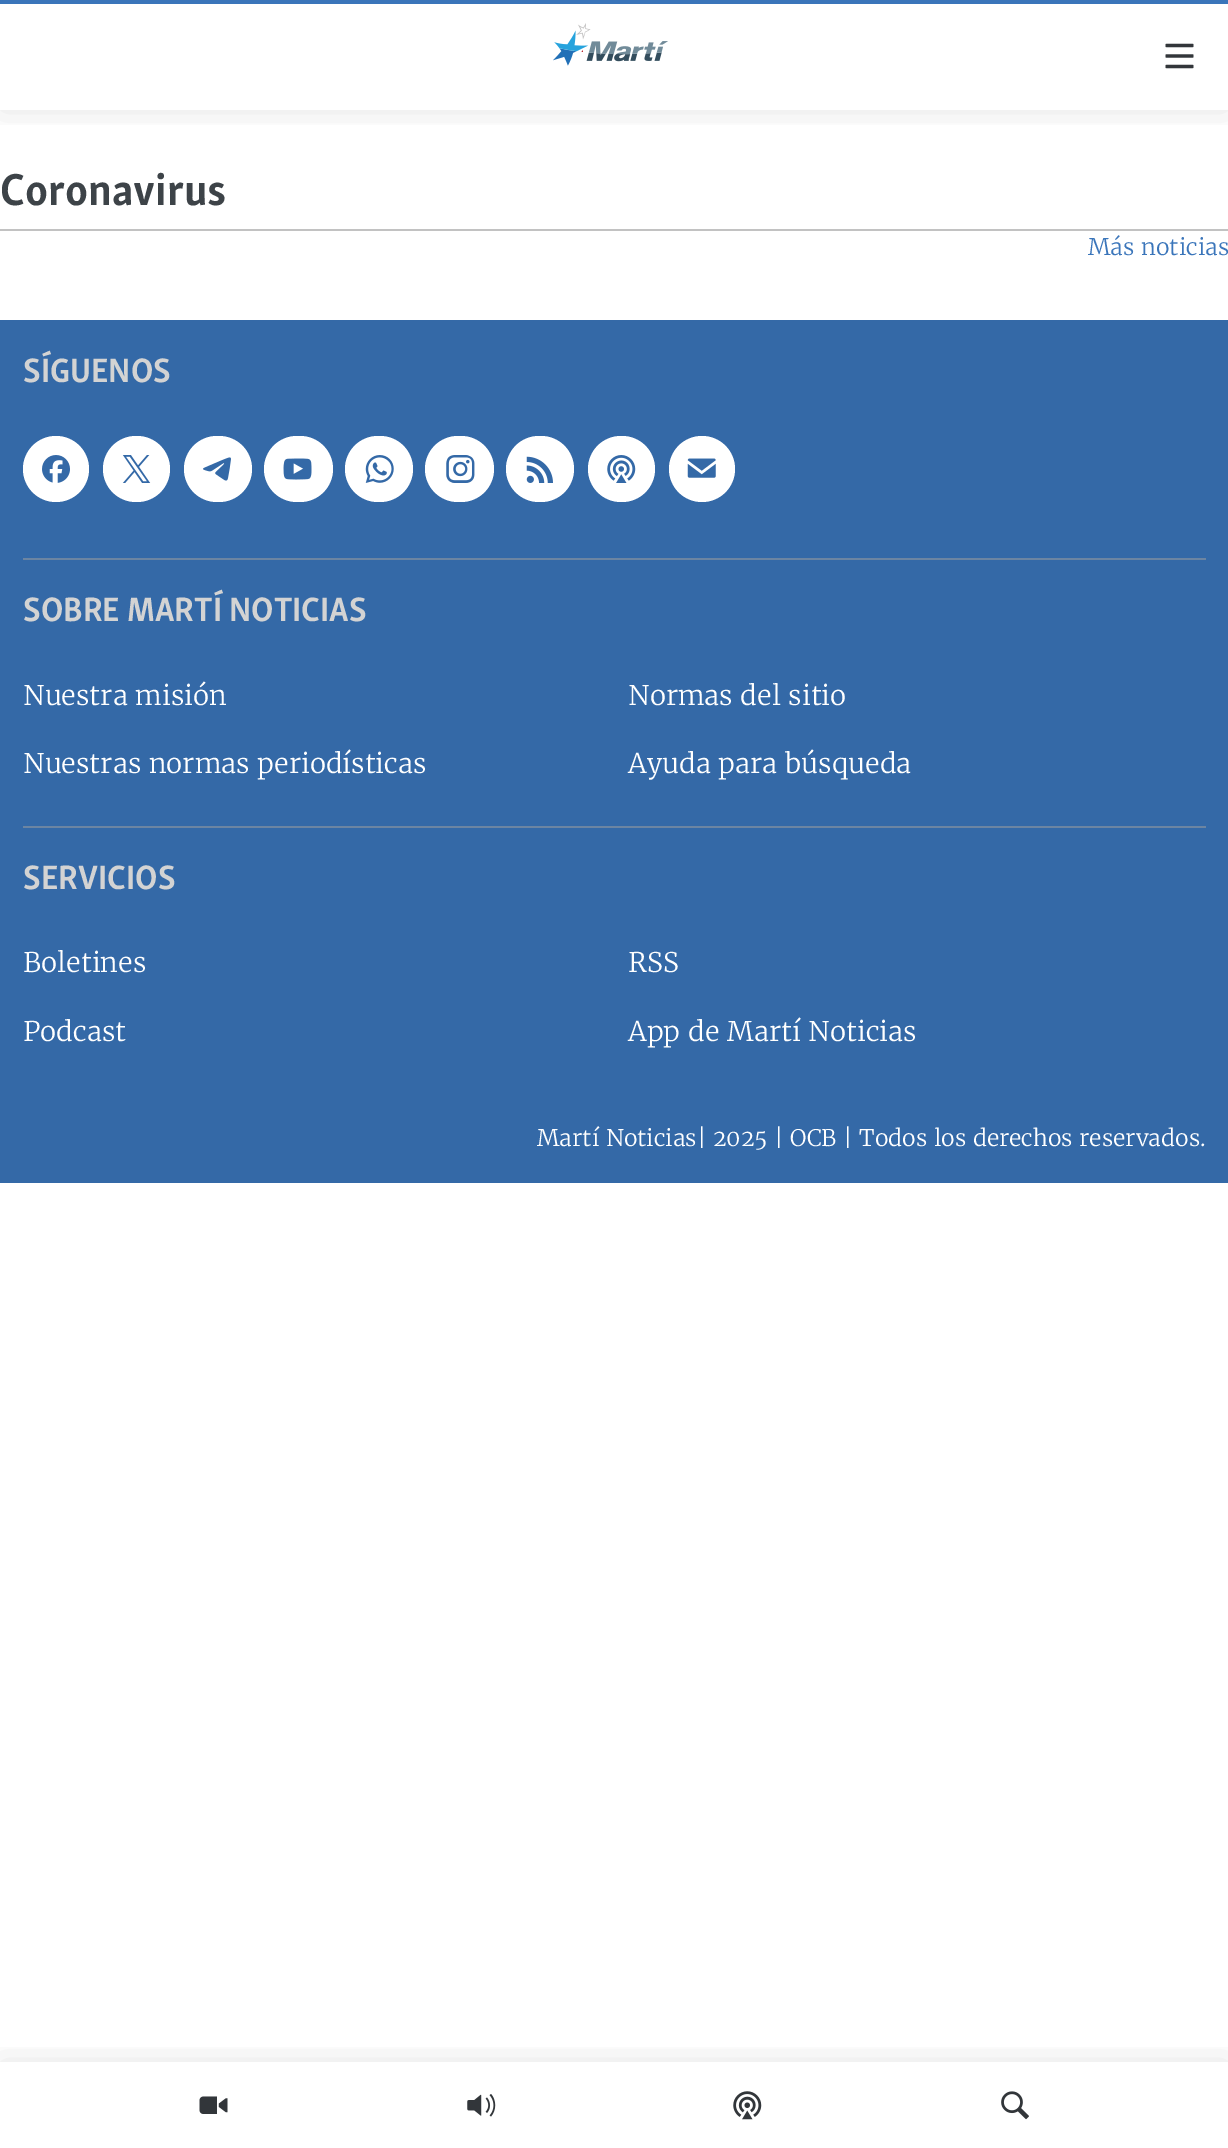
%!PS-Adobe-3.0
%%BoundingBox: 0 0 1228 2148
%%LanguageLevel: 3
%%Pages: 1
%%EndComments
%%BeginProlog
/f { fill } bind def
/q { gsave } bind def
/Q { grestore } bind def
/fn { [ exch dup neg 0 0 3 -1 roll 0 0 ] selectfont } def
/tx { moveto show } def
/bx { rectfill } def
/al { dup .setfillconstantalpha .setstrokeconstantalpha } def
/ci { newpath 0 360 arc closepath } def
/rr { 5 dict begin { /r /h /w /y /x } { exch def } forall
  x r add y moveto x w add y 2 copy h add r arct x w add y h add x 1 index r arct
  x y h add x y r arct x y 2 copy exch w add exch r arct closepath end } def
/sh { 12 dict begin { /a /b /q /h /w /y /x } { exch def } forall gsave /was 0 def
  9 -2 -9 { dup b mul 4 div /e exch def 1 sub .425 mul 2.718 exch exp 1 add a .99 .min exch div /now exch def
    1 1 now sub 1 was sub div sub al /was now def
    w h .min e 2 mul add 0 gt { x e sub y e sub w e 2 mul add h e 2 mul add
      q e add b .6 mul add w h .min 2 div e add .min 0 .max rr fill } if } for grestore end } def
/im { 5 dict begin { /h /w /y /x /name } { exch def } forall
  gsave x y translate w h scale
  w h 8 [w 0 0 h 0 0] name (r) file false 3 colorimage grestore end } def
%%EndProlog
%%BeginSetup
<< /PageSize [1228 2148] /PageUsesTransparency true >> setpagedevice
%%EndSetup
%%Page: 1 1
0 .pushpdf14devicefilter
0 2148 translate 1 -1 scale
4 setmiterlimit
1 setgray
0 0 1228 2148 bx
q
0 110 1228 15 rectclip
0 setgray
0 0 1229 110 0 17.5 0.1 sh
Q
0.227 0.459 0.729 setrgbcolor
0 0 1228 4 bx
(image0.raw) 553 23 115 43 im
(image1.raw) 1165 43 29 26 im
q
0 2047 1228 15 rectclip
0 setgray
0 2062 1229 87 0 17.5 0.1 sh
Q
(image2.raw) 199 2096 29 18 im
(image3.raw) 467 2094 29 23 im
(image4.raw) 733 2091 29 29 im
(image5.raw) 1001 2091 28 29 im
0.761 setgray
0 229 1228 2 bx
/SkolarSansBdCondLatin-Bold 46 fn
0.239 0.263 0.282 setrgbcolor
(Coronavirus) 0 205 tx
/Merriweather-Light 22.75 fn
0.227 0.459 0.729 setrgbcolor
(Más noticias) 1088 255 tx
0.204 0.412 0.655 setrgbcolor
0 320 1228 863 bx
/SkolarSansBdCondLatin-Bold 34.75 fn
0.827 setgray
(SÍGUENOS) 23 382 tx
1 setgray
56 469 33 ci f
(image6.raw) 42 455 28 28 im
103 436 67 66 33 rr f
(image7.raw) 122 455 29 28 im
184 436 68 66 33 rr f
(image8.raw) 203 457 28 24 im
264 436 69 66 33 rr f
(image9.raw) 283 458 29 22 im
345 436 68 66 33 rr f
(image10.raw) 365 455 29 28 im
425 436 69 66 33 rr f
(image11.raw) 446 455 29 28 im
506 436 68 66 33 rr f
(image12.raw) 526 456 27 27 im
588 436 67 66 33 rr f
(image13.raw) 607 455 29 28 im
702 469 33 ci f
(image14.raw) 687 458 29 20 im
0.424 0.522 0.635 setrgbcolor
23 558 1183 2 bx
0.827 setgray
(SOBRE MARTÍ NOTICIAS) 23 621 tx
/Merriweather-Light 27 fn
1 setgray
(Nuestra misión) 23 705 tx
(Normas del sitio) 628 705 tx
(Nuestras normas periodísticas) 23 773 tx
(Ayuda para búsqueda) 628 773 tx
0.424 0.522 0.635 setrgbcolor
23 826 1183 2 bx
/SkolarSansBdCondLatin-Bold 34.75 fn
0.827 setgray
(SERVICIOS) 23 889 tx
/Merriweather-Light 27 fn
1 setgray
(Boletines) 23 972 tx
(RSS) 628 972 tx
(Podcast) 23 1041 tx
(App de Martí Noticias) 628 1041 tx
/Merriweather-Light 22.75 fn
(Martí Noticias| 2025 | OCB | Todos los derechos reservados.) 537 1146 tx
.poppdf14devicefilter showpage
%%EOF
